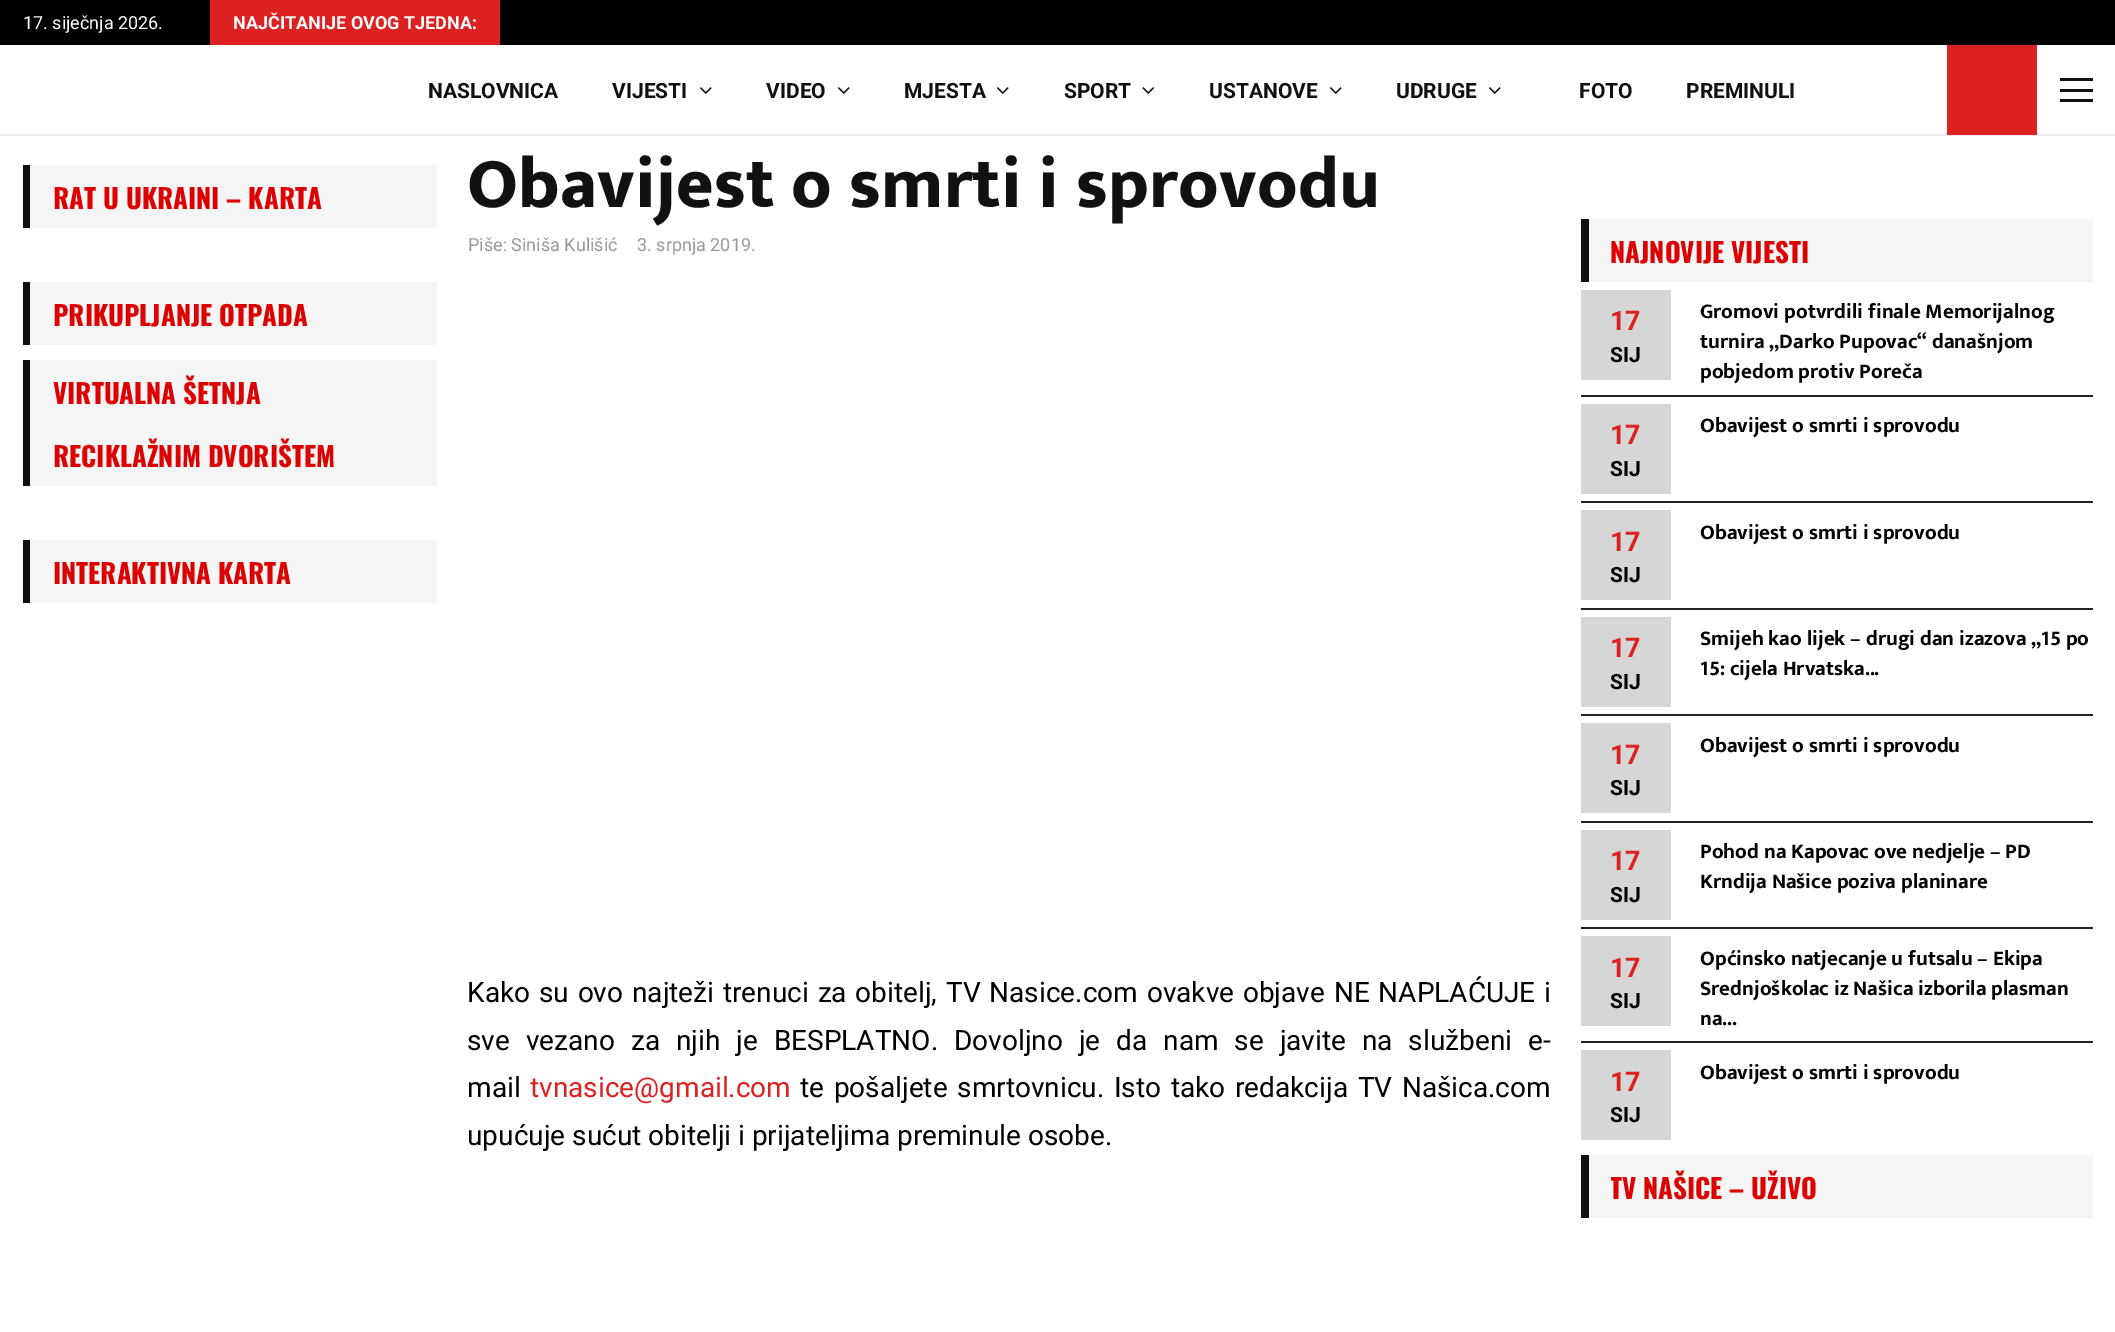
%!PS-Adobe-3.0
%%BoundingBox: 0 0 2115 1332
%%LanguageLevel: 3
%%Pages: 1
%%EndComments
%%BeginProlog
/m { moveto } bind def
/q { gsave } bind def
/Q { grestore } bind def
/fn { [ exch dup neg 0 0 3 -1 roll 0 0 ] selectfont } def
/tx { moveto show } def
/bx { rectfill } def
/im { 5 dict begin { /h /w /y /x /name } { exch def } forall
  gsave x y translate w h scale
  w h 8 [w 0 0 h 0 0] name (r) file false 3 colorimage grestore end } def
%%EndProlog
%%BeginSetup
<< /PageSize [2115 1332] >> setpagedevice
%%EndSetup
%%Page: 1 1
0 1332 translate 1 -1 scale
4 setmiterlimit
1 setgray
0 0 2115 1332 bx
0 setgray
0 0 2115 45 bx
/Roboto-Regular 18 fn
1 setgray
(17. siječnja 2026.) 23 29 tx
0.867 0.129 0.129 setrgbcolor
210 0 290 45 bx
/Roboto-Bold 18 fn
1 setgray
(NAJČITANIJE OVOG TJEDNA:) 233 29 tx
0.925 setgray
0 134 2115 2 bx
/Roboto-Bold 21 fn
0.067 setgray
(NASLOVNICA) 428 98 tx
(VIJESTI) 612 98 tx
(image0.raw) 700 87 12 7 im
(VIDEO) 766 98 tx
(image0.raw) 838 87 12 7 im
(MJESTA) 904 98 tx
(image0.raw) 997 87 12 7 im
(SPORT) 1064 98 tx
(image1.raw) 1142 87 12 7 im
(USTANOVE) 1209 98 tx
(image0.raw) 1330 87 12 7 im
(UDRUGE) 1396 98 tx
(image0.raw) 1489 87 12 7 im
(FOTO) 1579 98 tx
(PREMINULI) 1686 98 tx
0.867 0.129 0.129 setrgbcolor
1947 45 90 90 bx
0.067 setgray
2060 78 33 3 bx
2060 99 33 3 bx
2060 89 33 3 bx
0.961 setgray
30 165 407 63 bx
0.067 setgray
23 165 7 63 bx
/Oswald-Bold 27 fn
0.867 0 0 setrgbcolor
(RAT U UKRAINI – KARTA) 53 209 tx
0.961 setgray
30 282 407 63 bx
0.067 setgray
23 282 7 63 bx
0.867 0 0 setrgbcolor
(PRIKUPLJANJE OTPADA) 53 326 tx
0.961 setgray
30 360 407 126 bx
0.067 setgray
23 360 7 126 bx
0.867 0 0 setrgbcolor
(VIRTUALNA ŠETNJA) 53 404 tx
(RECIKLAŽNIM DVORIŠTEM) 53 467 tx
0.961 setgray
30 540 407 63 bx
0.067 setgray
23 540 7 63 bx
0.867 0 0 setrgbcolor
(INTERAKTIVNA KARTA) 53 584 tx
/MuktaVaani-ExtraBold 72 fn
0.067 setgray
467 207 m 0.2 0 (Obavijest o smrti i sprovodu) ashow
/Roboto-Regular 18 fn
0.6 setgray
(Piše: Siniša Kulišić) 468 251 tx
(3. srpnja 2019.) 637 251 tx
/Roboto-Regular 28 fn
0 setgray
467 1002 m 1.9 0 32 (Kako su ovo najteži trenuci za obitelj, TV Nasice.com ovakve objave NE NAPLAĆUJE i) widthshow
467 1050 m 9 0 32 (sve vezano za njih je BESPLATNO. Dovoljno je da nam se javite na službeni e-) widthshow
(mail) 467 1097 tx
0.867 0.129 0.129 setrgbcolor
(tvnasice@gmail.com) 530 1097 tx
0 setgray
800 1097 m 2.75 0 32 (te pošaljete smrtovnicu. Isto tako redakcija TV Našica.com) widthshow
(upućuje sućut obitelji i prijateljima preminule osobe.) 467 1145 tx
0.961 setgray
1589 219 504 63 bx
0.067 setgray
1581 219 8 63 bx
/Oswald-Bold 27 fn
0.867 0 0 setrgbcolor
(NAJNOVIJE VIJESTI) 1610 263 tx
0.129 setgray
1581 395 512 2 bx
0.839 setgray
1581 290 90 90 bx
/Roboto-Bold 27 fn
0.867 0.129 0.129 setrgbcolor
(17) 1610 330 tx
/Roboto-Bold 21 fn
0 setgray
(SIJ) 1610 362 tx
/MuktaVaani-Bold 21 fn
(Gromovi potvrdili finale Memorijalnog) 1700 318 tx
(turnira „Darko Pupovac“ današnjom) 1700 348 tx
(pobjedom protiv Poreča) 1700 378 tx
0.129 setgray
1581 501 512 2 bx
0.839 setgray
1581 404 90 90 bx
/Roboto-Bold 27 fn
0.867 0.129 0.129 setrgbcolor
(17) 1610 444 tx
/Roboto-Bold 21 fn
0 setgray
(SIJ) 1610 476 tx
/MuktaVaani-Bold 21 fn
(Obavijest o smrti i sprovodu) 1700 432 tx
0.129 setgray
1581 608 512 2 bx
0.839 setgray
1581 510 90 90 bx
/Roboto-Bold 27 fn
0.867 0.129 0.129 setrgbcolor
(17) 1610 551 tx
/Roboto-Bold 21 fn
0 setgray
(SIJ) 1610 582 tx
/MuktaVaani-Bold 21 fn
(Obavijest o smrti i sprovodu) 1700 539 tx
0.129 setgray
1581 714 512 2 bx
0.839 setgray
1581 617 90 90 bx
/Roboto-Bold 27 fn
0.867 0.129 0.129 setrgbcolor
(17) 1610 657 tx
/Roboto-Bold 21 fn
0 setgray
(SIJ) 1610 689 tx
/MuktaVaani-Bold 21 fn
(Smijeh kao lijek – drugi dan izazova „15 po) 1700 645 tx
(15: cijela Hrvatska...) 1700 675 tx
0.129 setgray
1581 821 512 2 bx
0.839 setgray
1581 723 90 90 bx
/Roboto-Bold 27 fn
0.867 0.129 0.129 setrgbcolor
(17) 1610 764 tx
/Roboto-Bold 21 fn
0 setgray
(SIJ) 1610 795 tx
/MuktaVaani-Bold 21 fn
(Obavijest o smrti i sprovodu) 1700 752 tx
0.129 setgray
1581 927 512 2 bx
0.839 setgray
1581 830 90 90 bx
/Roboto-Bold 27 fn
0.867 0.129 0.129 setrgbcolor
(17) 1610 870 tx
/Roboto-Bold 21 fn
0 setgray
(SIJ) 1610 902 tx
/MuktaVaani-Bold 21 fn
(Pohod na Kapovac ove nedjelje – PD) 1700 858 tx
(Krndija Našice poziva planinare) 1700 888 tx
0.129 setgray
1581 1041 512 2 bx
0.839 setgray
1581 936 90 90 bx
/Roboto-Bold 27 fn
0.867 0.129 0.129 setrgbcolor
(17) 1610 977 tx
/Roboto-Bold 21 fn
0 setgray
(SIJ) 1610 1008 tx
/MuktaVaani-Bold 21 fn
(Općinsko natjecanje u futsalu – Ekipa) 1700 965 tx
(Srednjoškolac iz Našica izborila plasman) 1700 995 tx
(na...) 1700 1025 tx
0.839 setgray
1581 1050 90 90 bx
/Roboto-Bold 27 fn
0.867 0.129 0.129 setrgbcolor
(17) 1610 1091 tx
/Roboto-Bold 21 fn
0 setgray
(SIJ) 1610 1122 tx
/MuktaVaani-Bold 21 fn
(Obavijest o smrti i sprovodu) 1700 1079 tx
0.961 setgray
1589 1155 504 63 bx
0.067 setgray
1581 1155 8 63 bx
q
1611 1155 452 63 rectclip
/Oswald-Bold 27 fn
0.867 0 0 setrgbcolor
(TV NAŠICE – UŽIVO) 1610 1199 tx
Q
showpage
%%EOF
